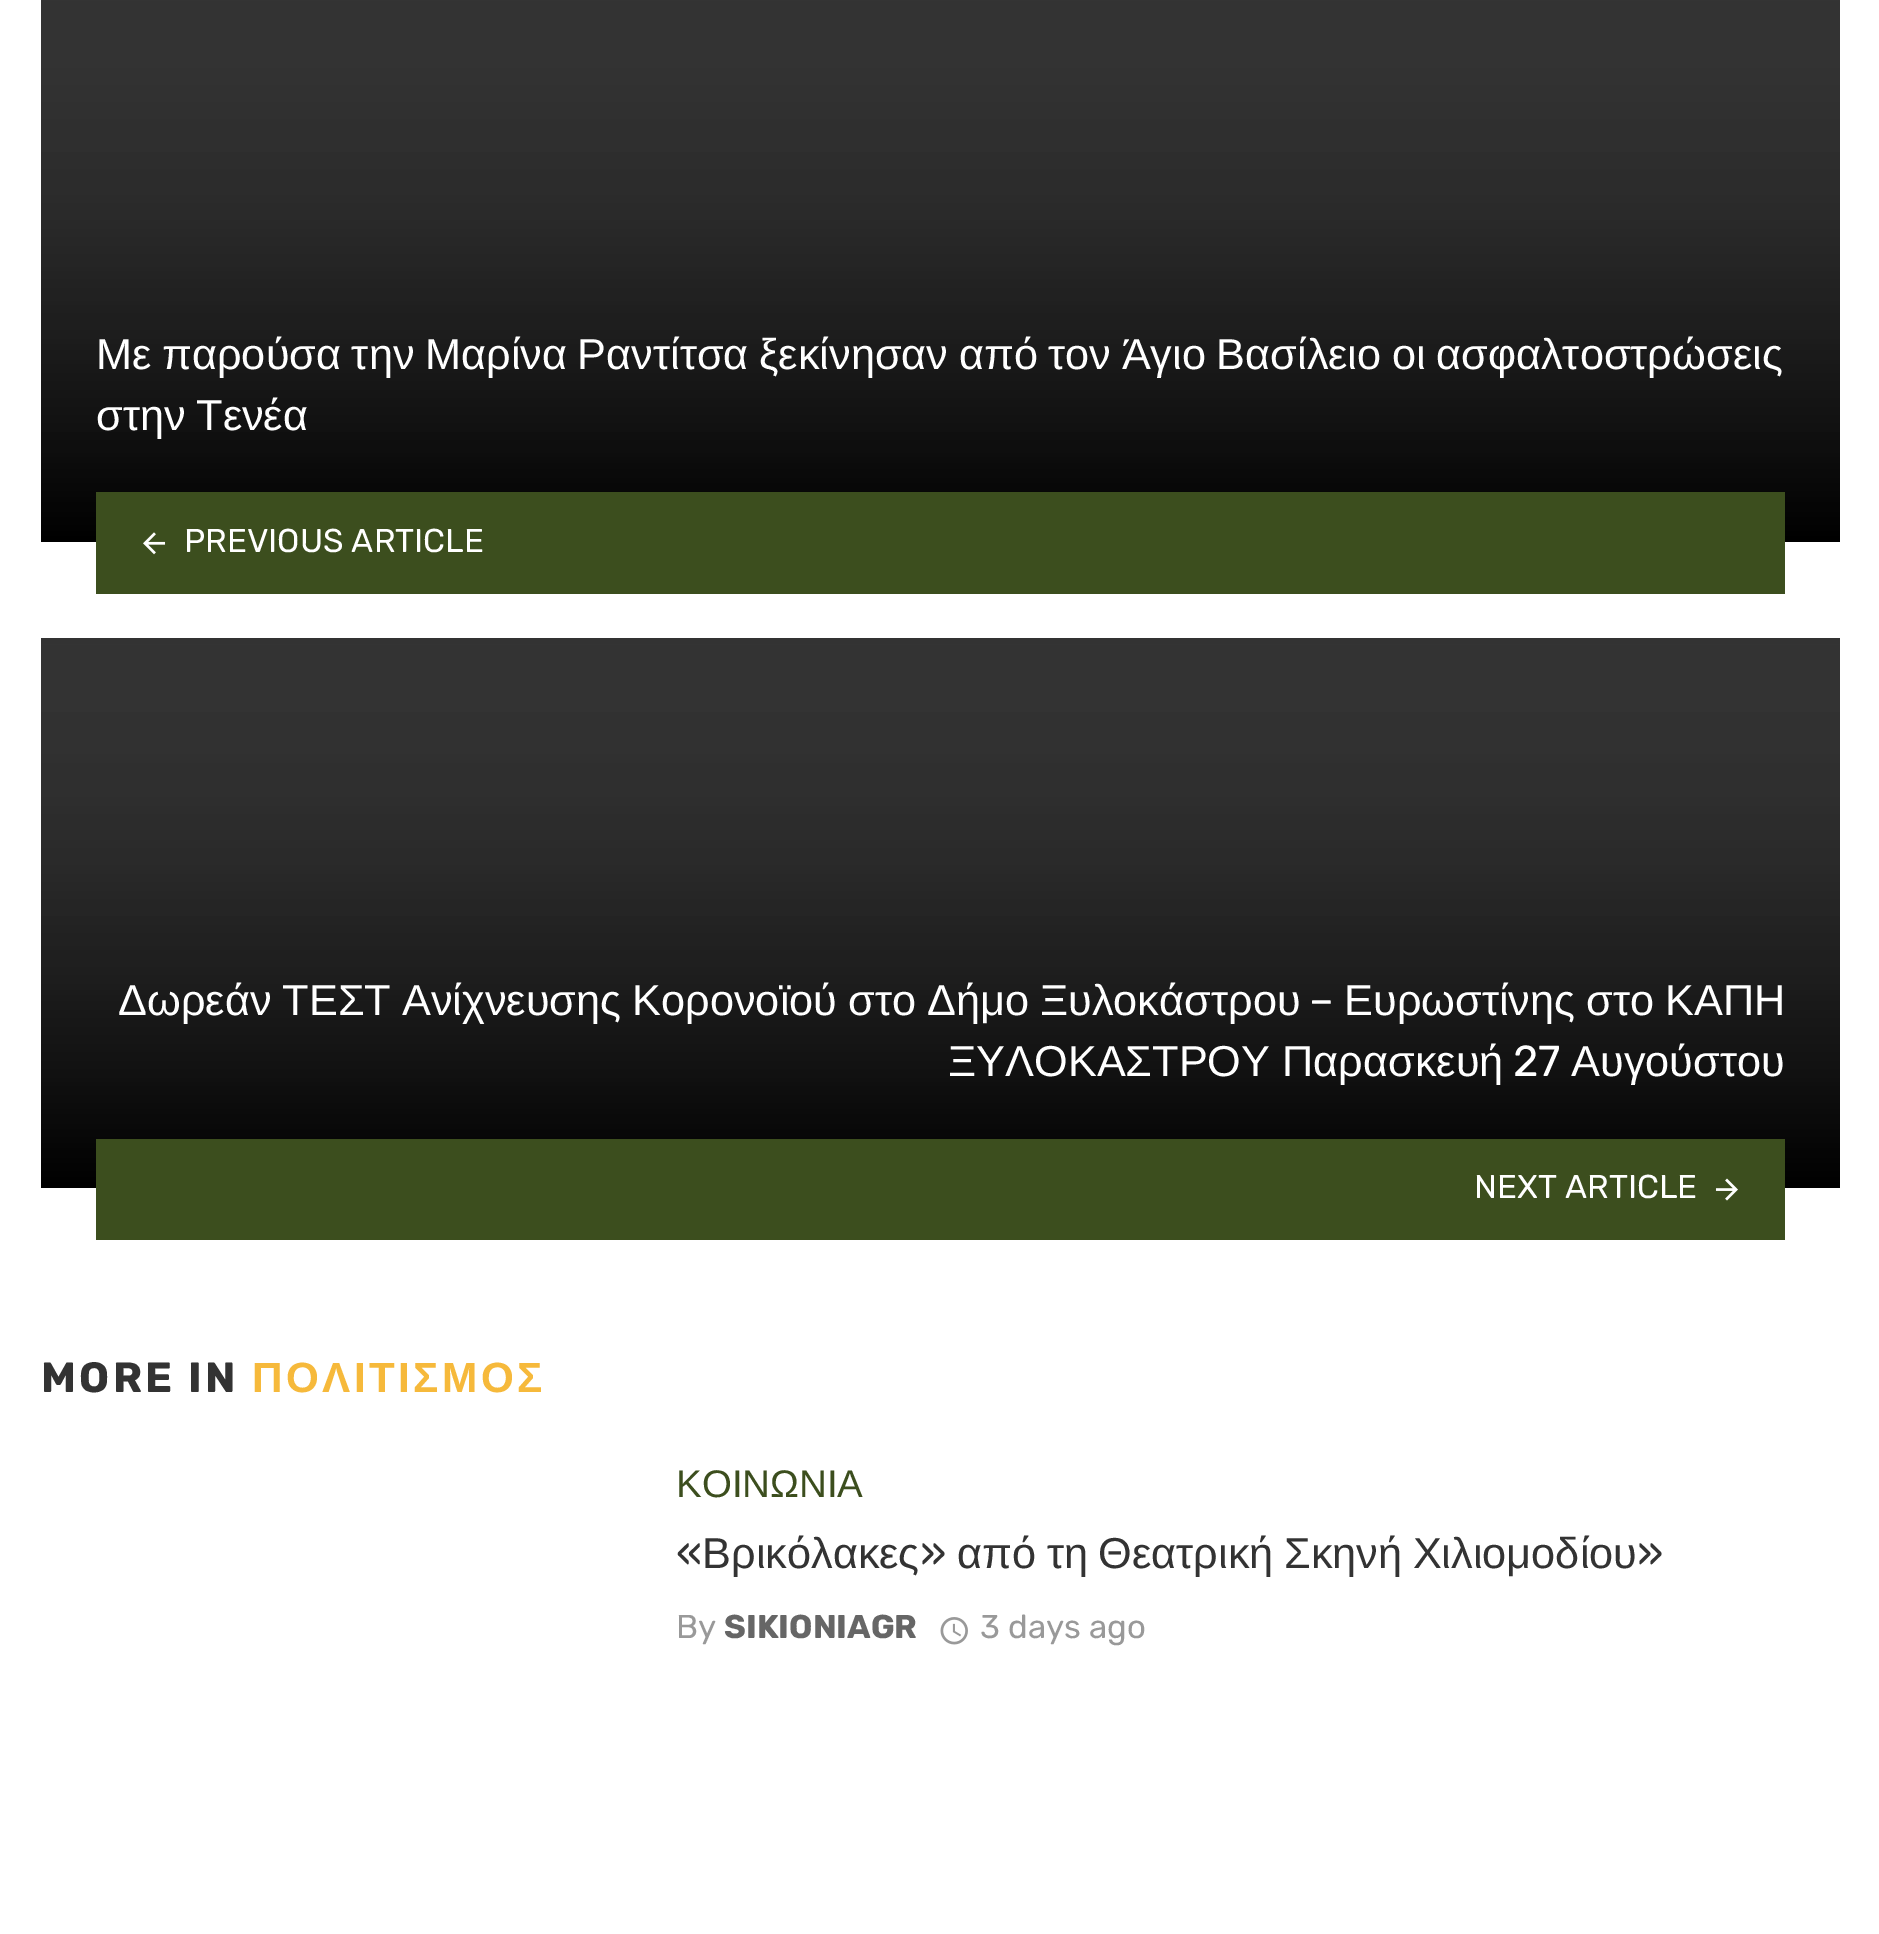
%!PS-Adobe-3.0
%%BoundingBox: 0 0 1879 1934
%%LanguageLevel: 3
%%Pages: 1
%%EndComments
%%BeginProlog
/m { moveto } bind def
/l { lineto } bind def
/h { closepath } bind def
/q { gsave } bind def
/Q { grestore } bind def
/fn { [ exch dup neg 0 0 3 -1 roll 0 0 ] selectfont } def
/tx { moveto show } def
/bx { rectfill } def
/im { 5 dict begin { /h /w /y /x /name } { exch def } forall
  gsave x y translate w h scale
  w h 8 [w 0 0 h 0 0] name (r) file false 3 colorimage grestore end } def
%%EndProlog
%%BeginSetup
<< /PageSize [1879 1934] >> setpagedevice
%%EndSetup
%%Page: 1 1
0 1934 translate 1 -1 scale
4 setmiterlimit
1 setgray
0 0 1879 1934 bx
q 41 0 m 1840 0 l 1840 542 l 41 542 l h clip newpath
<< /ShadingType 2 /ColorSpace /DeviceRGB /Coords [941 542 941 -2.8] /Extend [true true] /Function << /FunctionType 3 /Domain [0 1] /Functions [<< /FunctionType 2 /Domain [0 1] /C0 [0 0 0] /C1 [0.016 0.016 0.016] /N 1 >> << /FunctionType 2 /Domain [0 1] /C0 [0.016 0.016 0.016] /C1 [0.035 0.035 0.035] /N 1 >> << /FunctionType 2 /Domain [0 1] /C0 [0.035 0.035 0.035] /C1 [0.051 0.051 0.051] /N 1 >> << /FunctionType 2 /Domain [0 1] /C0 [0.051 0.051 0.051] /C1 [0.067 0.067 0.067] /N 1 >> << /FunctionType 2 /Domain [0 1] /C0 [0.067 0.067 0.067] /C1 [0.082 0.082 0.082] /N 1 >> << /FunctionType 2 /Domain [0 1] /C0 [0.082 0.082 0.082] /C1 [0.098 0.098 0.098] /N 1 >> << /FunctionType 2 /Domain [0 1] /C0 [0.098 0.098 0.098] /C1 [0.114 0.114 0.114] /N 1 >> << /FunctionType 2 /Domain [0 1] /C0 [0.114 0.114 0.114] /C1 [0.129 0.129 0.129] /N 1 >> << /FunctionType 2 /Domain [0 1] /C0 [0.129 0.129 0.129] /C1 [0.145 0.145 0.145] /N 1 >> << /FunctionType 2 /Domain [0 1] /C0 [0.145 0.145 0.145] /C1 [0.161 0.161 0.161] /N 1 >> << /FunctionType 2 /Domain [0 1] /C0 [0.161 0.161 0.161] /C1 [0.173 0.173 0.173] /N 1 >> << /FunctionType 2 /Domain [0 1] /C0 [0.173 0.173 0.173] /C1 [0.184 0.184 0.184] /N 1 >> << /FunctionType 2 /Domain [0 1] /C0 [0.184 0.184 0.184] /C1 [0.192 0.192 0.192] /N 1 >> << /FunctionType 2 /Domain [0 1] /C0 [0.192 0.192 0.192] /C1 [0.2 0.2 0.2] /N 1 >> << /FunctionType 2 /Domain [0 1] /C0 [0.2 0.2 0.2] /C1 [0.204 0.204 0.204] /N 1 >>] /Bounds [0.05 0.11 0.16 0.21 0.27 0.33 0.38 0.45 0.51 0.58 0.65 0.73 0.81 0.91] /Encode [0 1 0 1 0 1 0 1 0 1 0 1 0 1 0 1 0 1 0 1 0 1 0 1 0 1 0 1 0 1] >> >> shfill Q
/LiberationSans-Regular 43.3 fn
96 369 m -1.5 0 32 (Με παρούσα την Μαρίνα Ραντίτσα ξεκίνησαν από τον Άγιο Βασίλειο οι ασφαλτοστρώσεις) widthshow
96 430 m -1.5 0 32 (στην Τενέα) widthshow
0.235 0.306 0.118 setrgbcolor
96 492 1689 102 bx
(image0.raw) 143 532 23 23 im
/Rubik-Regular 33 fn
1 setgray
(PREVIOUS ARTICLE) 184 552 tx
0.2 setgray
41 638 1799 6 bx
q 41 644 m 1840 644 l 1840 1188 l 41 1188 l h clip newpath
<< /ShadingType 2 /ColorSpace /DeviceRGB /Coords [941 1188 941 644] /Extend [true true] /Function << /FunctionType 3 /Domain [0 1] /Functions [<< /FunctionType 2 /Domain [0 1] /C0 [0 0 0] /C1 [0.016 0.016 0.016] /N 1 >> << /FunctionType 2 /Domain [0 1] /C0 [0.016 0.016 0.016] /C1 [0.035 0.035 0.035] /N 1 >> << /FunctionType 2 /Domain [0 1] /C0 [0.035 0.035 0.035] /C1 [0.051 0.051 0.051] /N 1 >> << /FunctionType 2 /Domain [0 1] /C0 [0.051 0.051 0.051] /C1 [0.067 0.067 0.067] /N 1 >> << /FunctionType 2 /Domain [0 1] /C0 [0.067 0.067 0.067] /C1 [0.082 0.082 0.082] /N 1 >> << /FunctionType 2 /Domain [0 1] /C0 [0.082 0.082 0.082] /C1 [0.098 0.098 0.098] /N 1 >> << /FunctionType 2 /Domain [0 1] /C0 [0.098 0.098 0.098] /C1 [0.114 0.114 0.114] /N 1 >> << /FunctionType 2 /Domain [0 1] /C0 [0.114 0.114 0.114] /C1 [0.129 0.129 0.129] /N 1 >> << /FunctionType 2 /Domain [0 1] /C0 [0.129 0.129 0.129] /C1 [0.145 0.145 0.145] /N 1 >> << /FunctionType 2 /Domain [0 1] /C0 [0.145 0.145 0.145] /C1 [0.161 0.161 0.161] /N 1 >> << /FunctionType 2 /Domain [0 1] /C0 [0.161 0.161 0.161] /C1 [0.173 0.173 0.173] /N 1 >> << /FunctionType 2 /Domain [0 1] /C0 [0.173 0.173 0.173] /C1 [0.184 0.184 0.184] /N 1 >> << /FunctionType 2 /Domain [0 1] /C0 [0.184 0.184 0.184] /C1 [0.192 0.192 0.192] /N 1 >> << /FunctionType 2 /Domain [0 1] /C0 [0.192 0.192 0.192] /C1 [0.2 0.2 0.2] /N 1 >> << /FunctionType 2 /Domain [0 1] /C0 [0.2 0.2 0.2] /C1 [0.204 0.204 0.204] /N 1 >>] /Bounds [0.05 0.11 0.16 0.21 0.27 0.33 0.38 0.45 0.51 0.58 0.65 0.73 0.81 0.91] /Encode [0 1 0 1 0 1 0 1 0 1 0 1 0 1 0 1 0 1 0 1 0 1 0 1 0 1 0 1 0 1] >> >> shfill Q
/LiberationSans-Regular 43.3 fn
1 setgray
118 1015 m -1 0 32 (Δωρεάν ΤΕΣΤ Ανίχνευσης Κορονοϊού στο Δήμο Ξυλοκάστρου) widthshow
/Rubik-Regular 43.3 fn
(–) 1309 1015 tx
/LiberationSans-Regular 43.3 fn
1344 1015 m -1 0 32 (Ευρωστίνης στο ΚΑΠΗ) widthshow
(ΞΥΛΟΚΑΣΤΡΟΥ Παρασκευή) 948 1076 tx
/Rubik-Regular 43.3 fn
(27) 1513 1076 tx
/LiberationSans-Regular 43.3 fn
(Αυγούστου) 1571 1076 tx
0.235 0.306 0.118 setrgbcolor
96 1139 1689 101 bx
/Rubik-Regular 33 fn
1 setgray
(NEXT ARTICLE) 1474 1198 tx
(image1.raw) 1715 1178 23 23 im
/Rubik-Bold 42.25 fn
0.2 setgray
41 1392 m 3.4 0 (MORE IN) ashow
/LiberationSans-Bold 42.25 fn
0.965 0.725 0.231 setrgbcolor
252 1392 m 3.4 0 (ΠΟΛΙΤΙΣΜΟΣ) ashow
/LiberationSans-Regular 38.5 fn
0.235 0.306 0.118 setrgbcolor
(ΚΟΙΝΩΝΙΑ) 676 1497 tx
/Rubik-Regular 43.3 fn
0.2 setgray
(«) 676 1568 tx
/LiberationSans-Regular 43.3 fn
(Βρικόλακες) 702 1568 tx
/Rubik-Regular 43.3 fn
(») 920 1568 tx
/LiberationSans-Regular 43.3 fn
957 1568 m -1.5 0 32 (από τη Θεατρική Σκηνή Χιλιομοδίου) widthshow
/Rubik-Regular 43.3 fn
(») 1637 1568 tx
/Rubik-Regular 33 fn
0.6 setgray
(By) 676 1638 tx
/Rubik-Bold 33 fn
0.4 setgray
(SIKIONIAGR) 724 1638 tx
(image2.raw) 940 1617 28 28 im
/Rubik-Regular 33 fn
0.6 setgray
(3 days ago) 980 1638 tx
showpage
%%EOF
